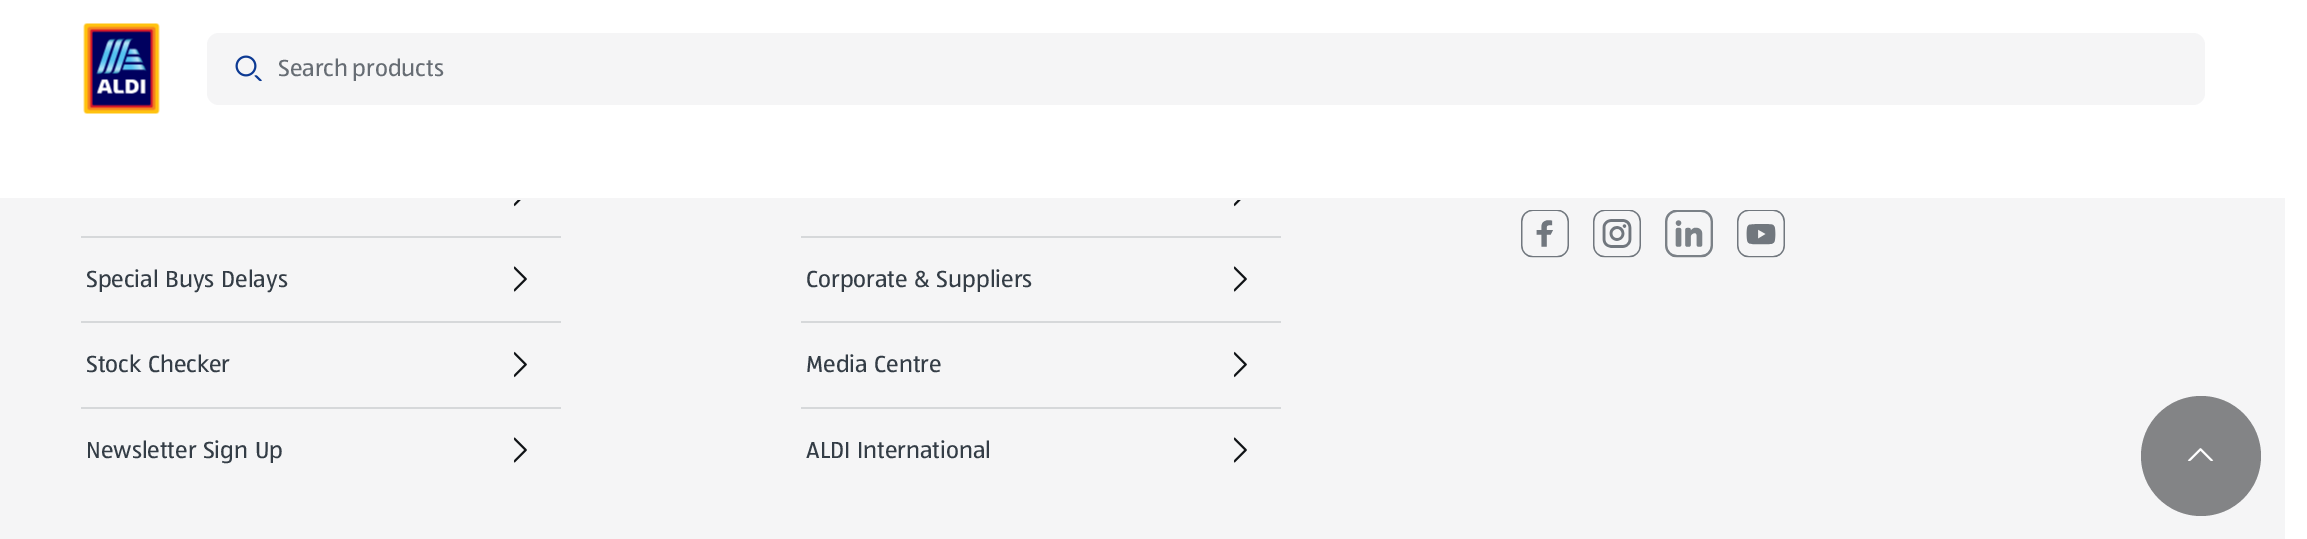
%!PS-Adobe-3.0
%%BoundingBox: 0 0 2307 539
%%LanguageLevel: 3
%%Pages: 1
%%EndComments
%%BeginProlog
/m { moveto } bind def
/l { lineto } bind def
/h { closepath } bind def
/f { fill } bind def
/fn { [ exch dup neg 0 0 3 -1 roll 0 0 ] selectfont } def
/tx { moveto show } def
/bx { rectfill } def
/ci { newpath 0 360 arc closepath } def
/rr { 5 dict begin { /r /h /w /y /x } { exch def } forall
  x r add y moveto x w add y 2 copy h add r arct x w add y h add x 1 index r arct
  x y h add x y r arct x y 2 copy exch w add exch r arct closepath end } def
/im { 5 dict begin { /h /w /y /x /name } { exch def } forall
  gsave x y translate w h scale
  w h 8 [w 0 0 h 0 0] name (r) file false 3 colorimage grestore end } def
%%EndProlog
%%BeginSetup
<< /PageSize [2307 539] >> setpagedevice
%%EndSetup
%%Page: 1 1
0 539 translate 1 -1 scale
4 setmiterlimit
1 setgray
0 0 2307 539 bx
0.961 0.961 0.965 setrgbcolor
0 198 m 0 200 l 2285 200 l 2285 2 l 2284 2 l 2284 198 l h f
1 setgray
2284 2 1 196 bx
(image0.raw) 83 23 77 91 im
0.961 0.961 0.965 setrgbcolor
207 33 1998 72 12 rr f
(image1.raw) 235 55 27 27 im
/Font-Regular 24 fn
0.404 0.427 0.455 setrgbcolor
(Search products) 278 76 tx
0.961 0.961 0.965 setrgbcolor
0 200 2285 339 bx
(image2.raw) 1521 210 48 48 im
(image3.raw) 1593 210 48 48 im
(image4.raw) 1665 210 48 48 im
(image5.raw) 1737 210 48 48 im
0.839 0.847 0.855 setrgbcolor
81 236 480 2 bx
(image6.raw) 513 200 8 7 im
81 321 480 2 bx
0.204 0.239 0.275 setrgbcolor
86 287 m 2 0 32 (Special Buys Delays) widthshow
(image7.raw) 513 266 14 26 im
0.839 0.847 0.855 setrgbcolor
81 407 480 2 bx
0.204 0.239 0.275 setrgbcolor
86 372 m 2 0 32 (Stock Checker) widthshow
(image8.raw) 513 351 14 27 im
86 458 m 2 0 32 (Newsletter Sign Up) widthshow
(image7.raw) 513 437 14 26 im
0.839 0.847 0.855 setrgbcolor
801 236 480 2 bx
(image6.raw) 1233 200 8 7 im
801 321 480 2 bx
0.204 0.239 0.275 setrgbcolor
806 287 m 2 0 32 (Corporate & Suppliers) widthshow
(image7.raw) 1233 266 14 26 im
0.839 0.847 0.855 setrgbcolor
801 407 480 2 bx
0.204 0.239 0.275 setrgbcolor
806 372 m 2 0 32 (Media Centre) widthshow
(image8.raw) 1233 351 14 27 im
806 458 m 2 0 32 (ALDI International) widthshow
(image7.raw) 1233 437 14 26 im
0.514 0.518 0.525 setrgbcolor
2201 456 60 ci f
(image9.raw) 2187 448 27 13 im
showpage
%%EOF
